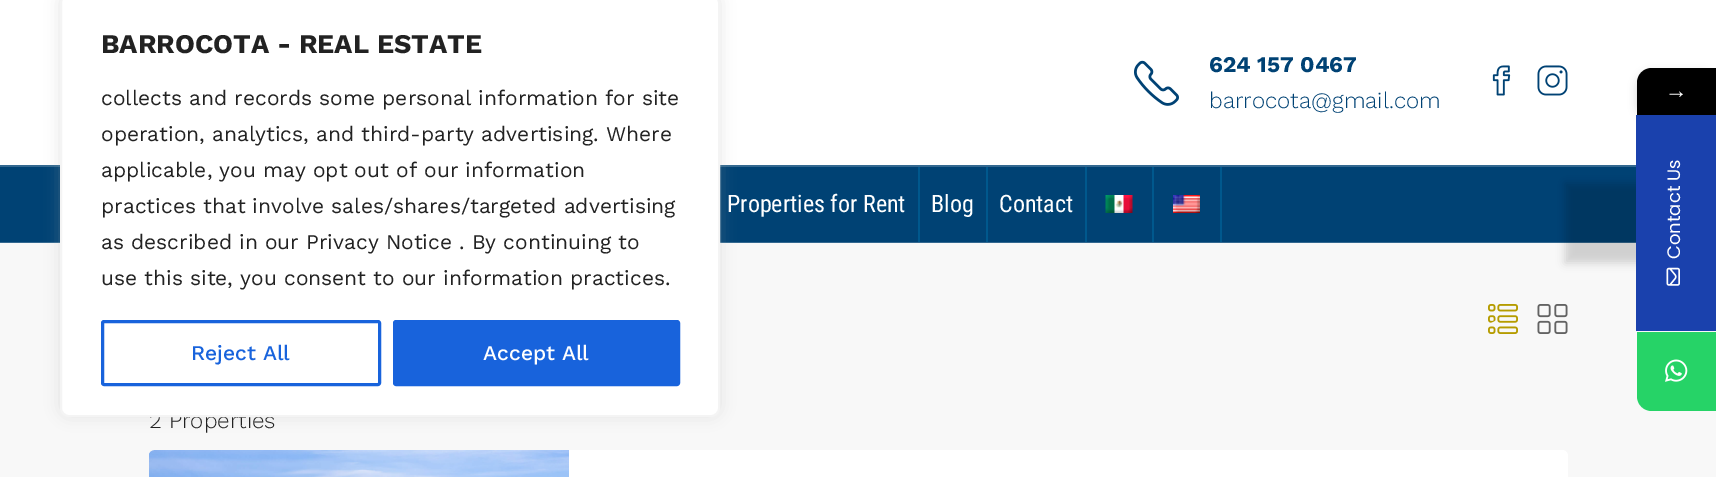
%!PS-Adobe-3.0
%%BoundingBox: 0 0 1716 477
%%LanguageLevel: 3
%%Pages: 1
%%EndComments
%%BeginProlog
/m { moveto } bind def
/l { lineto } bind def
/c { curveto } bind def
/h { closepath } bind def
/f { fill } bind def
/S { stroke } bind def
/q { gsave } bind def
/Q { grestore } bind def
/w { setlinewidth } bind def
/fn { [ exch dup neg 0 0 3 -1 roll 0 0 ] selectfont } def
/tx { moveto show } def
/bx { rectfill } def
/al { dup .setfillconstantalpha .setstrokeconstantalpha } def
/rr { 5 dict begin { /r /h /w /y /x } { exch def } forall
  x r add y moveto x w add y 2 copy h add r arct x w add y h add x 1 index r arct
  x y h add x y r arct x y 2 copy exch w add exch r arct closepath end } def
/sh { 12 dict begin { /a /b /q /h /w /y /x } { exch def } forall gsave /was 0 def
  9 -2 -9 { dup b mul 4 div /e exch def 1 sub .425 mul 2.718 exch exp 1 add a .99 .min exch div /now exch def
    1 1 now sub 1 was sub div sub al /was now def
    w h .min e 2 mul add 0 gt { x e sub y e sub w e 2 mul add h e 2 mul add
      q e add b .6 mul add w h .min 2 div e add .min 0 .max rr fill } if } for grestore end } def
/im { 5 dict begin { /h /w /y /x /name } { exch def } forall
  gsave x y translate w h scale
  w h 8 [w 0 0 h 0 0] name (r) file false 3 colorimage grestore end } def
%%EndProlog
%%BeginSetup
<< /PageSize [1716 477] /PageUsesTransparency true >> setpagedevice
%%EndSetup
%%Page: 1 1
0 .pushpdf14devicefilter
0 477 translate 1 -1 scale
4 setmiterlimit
0.973 setgray
0 0 1716 477 bx
1 setgray
0 0 1716 165 bx
0 0.259 0.455 setrgbcolor
0 167 1636 75 bx
0.2 0.408 0.565 setrgbcolor
0 242 1636 1 bx
0 165 1636 2 bx
0.675 0.671 0.671 setrgbcolor
60 -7 660 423 9 7.5 0.3 sh
/WorkSans-Light 22.5 fn
0.133 setgray
(2 Properties) 149 428 tx
1 setgray
61 -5 658 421 8 rr q f Q
0.957 setgray
2 w
S
/WorkSans-Bold 27 fn
0.133 setgray
(BARROCOTA - REAL ESTATE) 101 53 tx
/WorkSans-Regular 21 fn
(collects and records some personal information for site) 101 105 tx
(operation, analytics, and third-party advertising. Where) 101 141 tx
(applicable, you may opt out of our information) 101 177 tx
(practices that involve sales/shares/targeted advertising) 101 213 tx
(as described in our Privacy Notice . By continuing to) 101 249 tx
(use this site, you consent to our information practices.) 101 285 tx
0.094 0.388 0.863 setrgbcolor
3 w
102.5 321.5 277 63 1.5 rr S
/WorkSans-Medium 21 fn
(Reject All) 191 360 tx
394.5 321.5 284 63 1.5 rr q f Q
S
1 setgray
(Accept All) 483 360 tx
(image0.raw) 1134 60 45 46 im
/WorkSans-Bold 22.5 fn
0 0.259 0.455 setrgbcolor
(624 157 0467) 1209 72 tx
/WorkSans-Light 22.5 fn
(barrocota@gmail.com) 1209 108 tx
(image1.raw) 1492 65 19 31 im
(image2.raw) 1537 65 31 31 im
0 0.345 0.553 setrgbcolor
918 167 2 75 bx
/RobotoCondensed-Regular 24 fn
1 setgray
(Properties for Rent) 727 212 tx
0 0.345 0.553 setrgbcolor
986 167 2 75 bx
1 setgray
(Blog) 931 212 tx
0 0.345 0.553 setrgbcolor
1085 167 2 75 bx
1 setgray
(Contact) 999 212 tx
0 0.345 0.553 setrgbcolor
1152 167 2 75 bx
(image3.raw) 1105 195 28 18 im
1220 167 2 75 bx
(image4.raw) 1173 195 27 18 im
(image5.raw) 1488 304 30 30 im
(image6.raw) 1537 304 31 30 im
1 setgray
149 450 1419 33 6 rr f
(image7.raw) 149 450 420 27 im
0 setgray
1637 72 79 48 15 4.5 0.16 sh
1652 68 m 1716 68 l 1716 116 l 1637 116 l 1637 83 l 1637 74.5 1643.5 68 1652 68 c h f
/LiberationSerif-Regular 22.5 fn
1 setgray
(→) 1665 98 tx
0 setgray
1565 183 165 80 0 4.5 0.16 sh
0.102 0.255 0.678 setrgbcolor
1636 115 80 216 bx
/Poppins-Regular 18 fn
1 setgray
q 1680 259 translate -90 rotate 0 0 m (Contact Us) show Q
(image8.raw) 1666 267 14 19 im
0.149 0.827 0.404 setrgbcolor
1637 332 m 1716 332 l 1716 411 l 1652 411 l 1643.5 411 1637 404.5 1637 396 c h f
(image9.raw) 1665 359 23 23 im
.poppdf14devicefilter showpage
%%EOF
